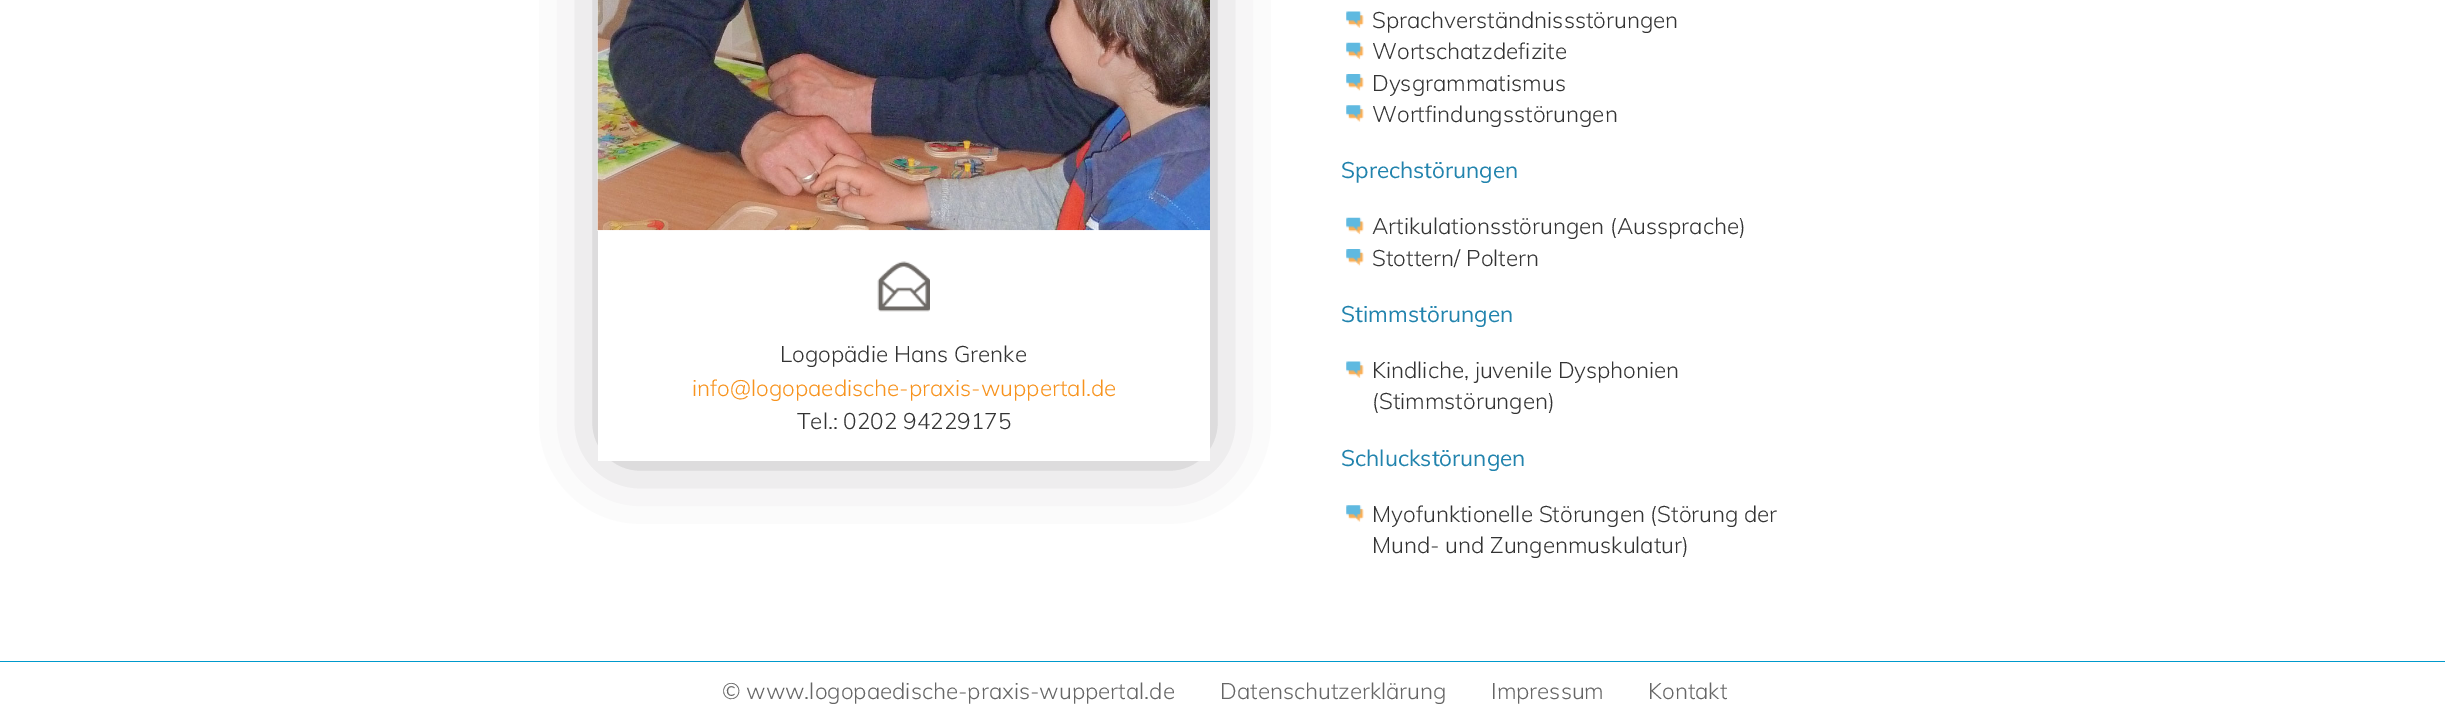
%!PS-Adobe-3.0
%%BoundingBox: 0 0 2445 721
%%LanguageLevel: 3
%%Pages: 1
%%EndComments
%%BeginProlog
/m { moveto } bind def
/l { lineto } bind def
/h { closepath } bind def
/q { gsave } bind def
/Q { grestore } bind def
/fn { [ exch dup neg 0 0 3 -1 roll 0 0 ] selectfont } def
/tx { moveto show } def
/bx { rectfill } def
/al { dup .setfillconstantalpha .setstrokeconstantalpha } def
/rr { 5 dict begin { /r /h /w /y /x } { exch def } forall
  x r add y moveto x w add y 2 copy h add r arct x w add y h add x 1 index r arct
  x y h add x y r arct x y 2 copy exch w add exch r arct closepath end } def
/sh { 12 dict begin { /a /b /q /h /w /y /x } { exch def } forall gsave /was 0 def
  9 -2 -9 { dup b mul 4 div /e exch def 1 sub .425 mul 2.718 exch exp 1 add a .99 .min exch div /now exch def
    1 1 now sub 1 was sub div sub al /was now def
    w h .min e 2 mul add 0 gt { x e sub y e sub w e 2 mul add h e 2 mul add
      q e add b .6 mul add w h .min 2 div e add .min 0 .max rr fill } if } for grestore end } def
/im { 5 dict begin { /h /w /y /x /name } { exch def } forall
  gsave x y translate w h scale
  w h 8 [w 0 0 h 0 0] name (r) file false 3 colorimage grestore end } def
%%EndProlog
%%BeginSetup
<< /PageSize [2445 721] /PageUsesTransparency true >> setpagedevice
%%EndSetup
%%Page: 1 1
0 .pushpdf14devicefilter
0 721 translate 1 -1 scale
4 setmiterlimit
1 setgray
0 0 2445 721 bx
q
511 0 m 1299 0 l 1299 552 l 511 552 l h 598 -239 m 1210 -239 l 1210 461 l 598 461 l h eoclip newpath
0.541 0.533 0.541 setrgbcolor
619 -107 572 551 0 35.5 1 sh
Q
(image0.raw) 877 261 53 51 im
(image1.raw) 597 0 613 231 im
/Muli-Light 22.5 fn
0.2 setgray
(Logopädie Hans Grenke) 780 362 tx
0.969 0.576 0.118 setrgbcolor
(info@logopaedische-praxis-wuppertal.de) 692 396 tx
0.2 setgray
(Tel.: 0202 94229175) 797 429 tx
(image2.raw) 1346 11 18 17 im
(Sprachverständnissstörungen) 1372 28 tx
(image3.raw) 1346 42 18 18 im
(Wortschatzdefizite) 1372 59 tx
(image4.raw) 1346 74 18 17 im
(Dysgrammatismus) 1372 91 tx
(image5.raw) 1346 105 18 17 im
(Wortfindungsstörungen) 1372 122 tx
/Muli-Regular 22.5 fn
0.129 0.514 0.678 setrgbcolor
(Sprechstörungen) 1341 178 tx
(image3.raw) 1346 217 18 18 im
/Muli-Light 22.5 fn
0.2 setgray
(Artikulationsstörungen \(Aussprache\)) 1372 234 tx
(image4.raw) 1346 249 18 17 im
(Stottern/ Poltern) 1372 266 tx
/Muli-Regular 22.5 fn
0.129 0.514 0.678 setrgbcolor
(Stimmstörungen) 1341 322 tx
(image2.raw) 1346 361 18 17 im
/Muli-Light 22.5 fn
0.2 setgray
(Kindliche, juvenile Dysphonien) 1372 378 tx
(\(Stimmstörungen\)) 1372 409 tx
/Muli-Regular 22.5 fn
0.129 0.514 0.678 setrgbcolor
(Schluckstörungen) 1341 466 tx
(image5.raw) 1346 505 18 17 im
/Muli-Light 22.5 fn
0.2 setgray
(Myofunktionelle Störungen \(Störung der) 1372 522 tx
(Mund- und Zungenmuskulatur\)) 1372 553 tx
0 0.6 0.8 setrgbcolor
0 661 2445 1 bx
0.4 setgray
(© www.logopaedische-praxis-wuppertal.de) 722 699 tx
(Datenschutzerklärung) 1220 699 tx
(Impressum) 1491 699 tx
(Kontakt) 1648 699 tx
.poppdf14devicefilter showpage
%%EOF
